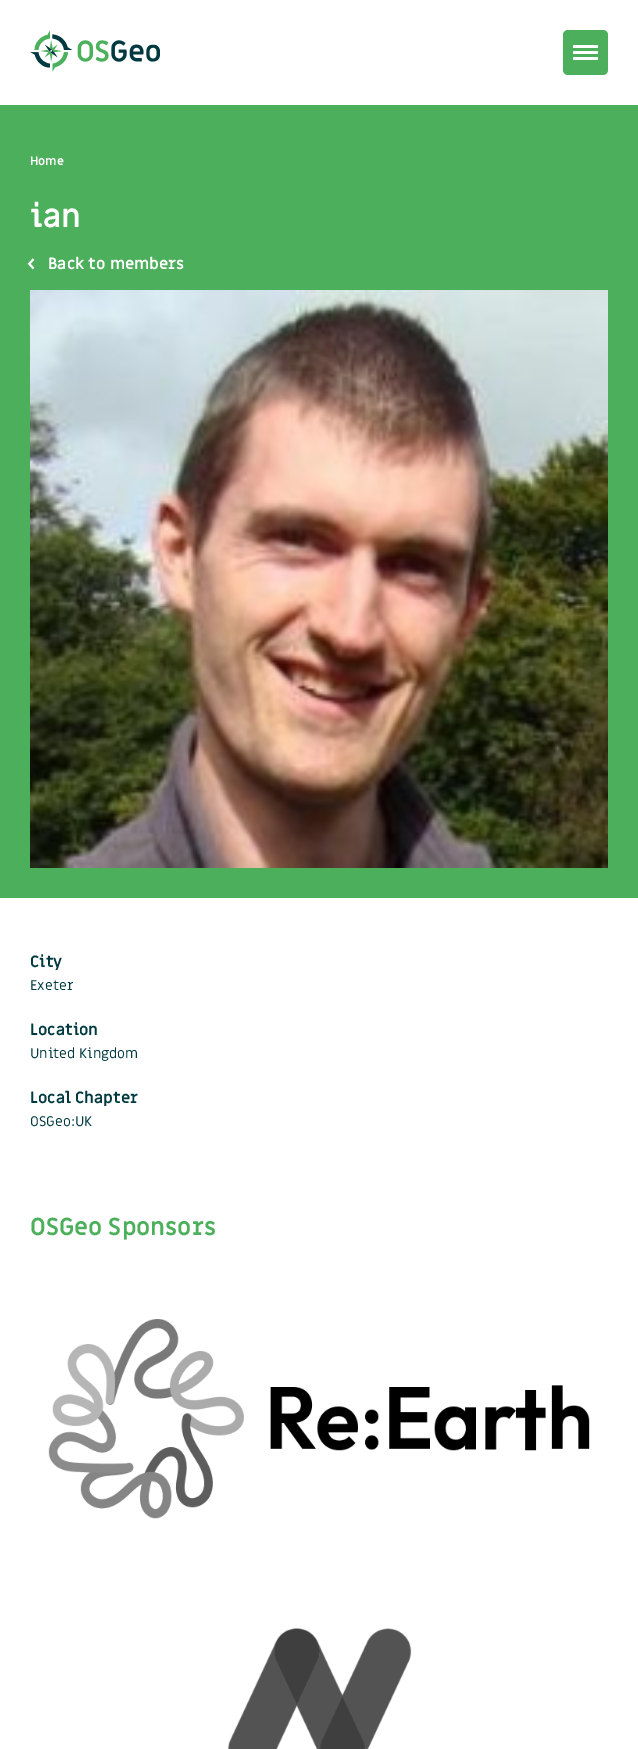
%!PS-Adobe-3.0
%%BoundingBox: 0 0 638 1749
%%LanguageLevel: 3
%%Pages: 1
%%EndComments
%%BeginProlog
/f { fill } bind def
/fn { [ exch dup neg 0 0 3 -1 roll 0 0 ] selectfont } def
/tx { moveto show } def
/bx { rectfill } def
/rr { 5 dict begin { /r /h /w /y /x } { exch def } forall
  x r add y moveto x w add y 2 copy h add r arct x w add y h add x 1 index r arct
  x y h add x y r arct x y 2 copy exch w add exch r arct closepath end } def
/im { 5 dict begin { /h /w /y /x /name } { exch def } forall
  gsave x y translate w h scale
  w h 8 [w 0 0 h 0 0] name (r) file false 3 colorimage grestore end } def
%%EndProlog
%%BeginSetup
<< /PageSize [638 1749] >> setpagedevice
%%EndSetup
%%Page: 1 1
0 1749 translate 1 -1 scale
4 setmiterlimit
1 setgray
0 0 638 1749 bx
(image0.raw) 30 30 130 42 im
0.298 0.686 0.357 setrgbcolor
563 30 45 45 5 rr f
1 setgray
573 45 25 3 1 rr f
573 51 25 3 1 rr f
573 57 25 3 1 rr f
0.298 0.686 0.357 setrgbcolor
0 105 638 793 bx
/MiriamLibre-Bold 12 fn
1 setgray
(Home) 30 165 tx
/MiriamLibre-Bold 32 fn
(ian) 30 227 tx
(image1.raw) 27 258 8 12 im
/MiriamLibre-Bold 16 fn
(Back to members) 48 269 tx
(image2.raw) 30 290 578 578 im
0 0.227 0.251 setrgbcolor
(City) 30 967 tx
/MiriamLibre-Regular 14 fn
(Exeter) 30 990 tx
/MiriamLibre-Bold 16 fn
(Location) 30 1035 tx
/MiriamLibre-Regular 14 fn
(United Kingdom) 30 1058 tx
/MiriamLibre-Bold 16 fn
(Local Chapter) 30 1103 tx
/MiriamLibre-Regular 14 fn
(OSGeo:UK) 30 1126 tx
/MiriamLibre-Bold 24 fn
0.298 0.686 0.357 setrgbcolor
(OSGeo Sponsors) 30 1235 tx
(image3.raw) 48 1319 542 200 im
(image4.raw) 228 1628 184 121 im
showpage
%%EOF
